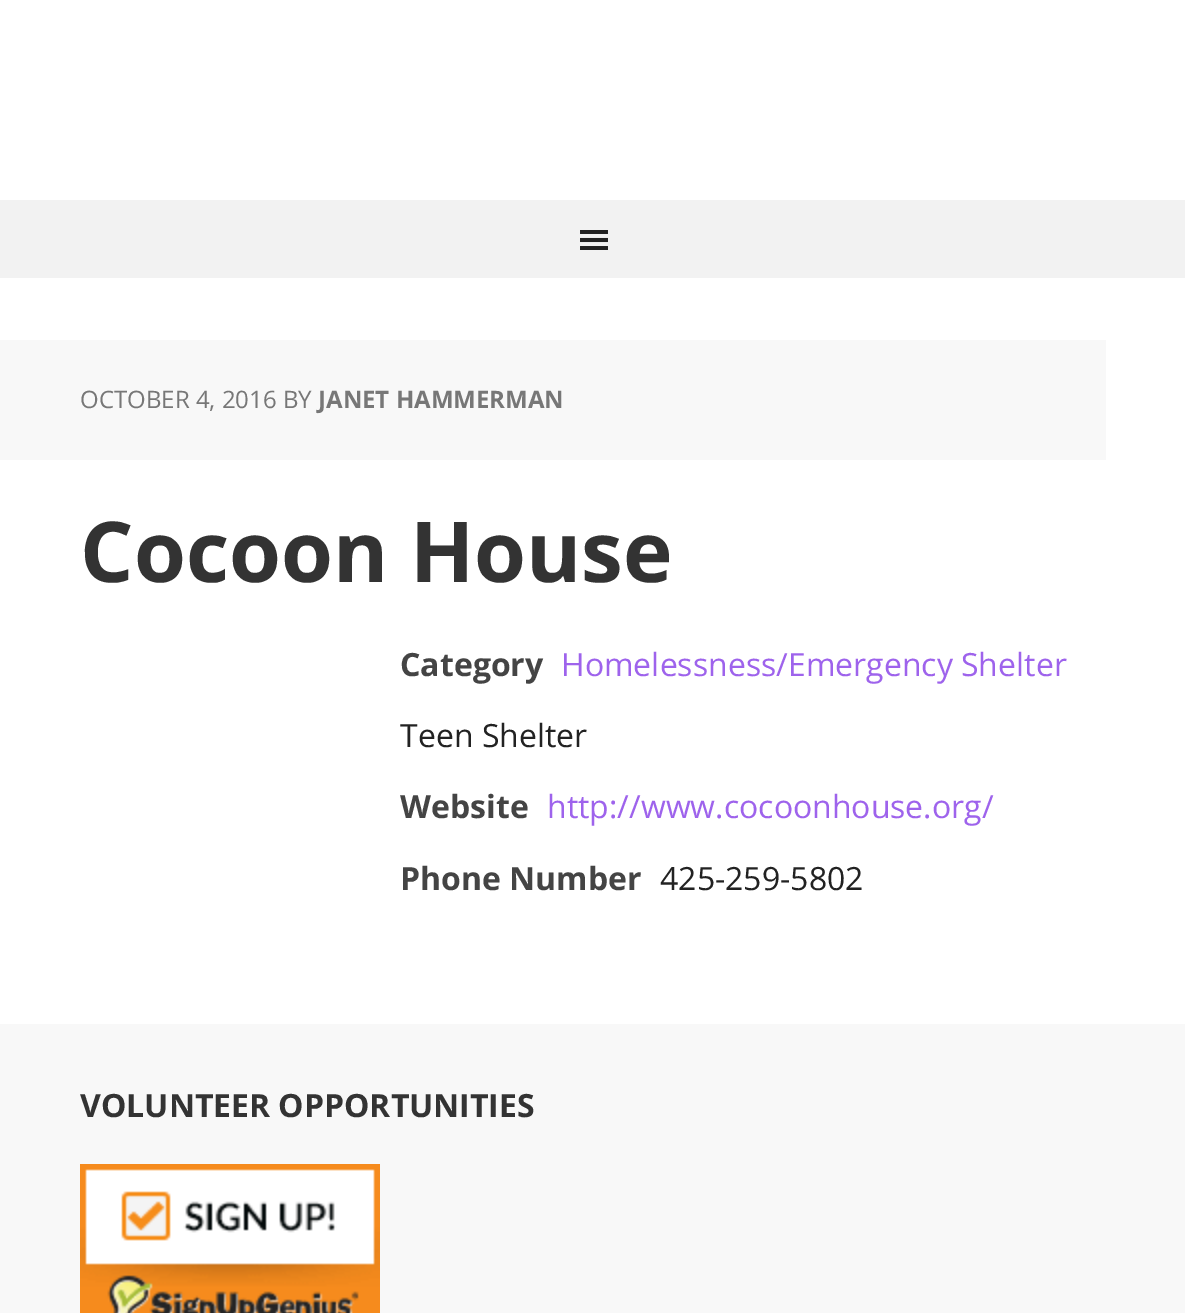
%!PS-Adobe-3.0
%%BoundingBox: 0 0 1185 1313
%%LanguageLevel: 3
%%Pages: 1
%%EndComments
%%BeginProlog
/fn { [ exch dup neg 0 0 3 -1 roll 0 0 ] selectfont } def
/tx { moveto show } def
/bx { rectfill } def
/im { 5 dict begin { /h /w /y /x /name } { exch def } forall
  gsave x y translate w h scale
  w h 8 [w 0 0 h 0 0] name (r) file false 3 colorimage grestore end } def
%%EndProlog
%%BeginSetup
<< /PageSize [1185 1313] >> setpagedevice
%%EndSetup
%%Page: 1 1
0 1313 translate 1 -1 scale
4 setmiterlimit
1 setgray
0 0 1185 1313 bx
0.949 setgray
0 200 1185 78 bx
(image0.raw) 580 230 28 20 im
0.973 setgray
0 340 1106 120 bx
/OpenSans-Regular 24 fn
0.467 setgray
(OCTOBER 4, 2016 BY) 80 408 tx
/OpenSans-Bold 24 fn
(JANET HAMMERMAN) 318 408 tx
/OpenSans-Bold 84 fn
0.2 setgray
(Cocoon House) 80 582 tx
/OpenSans-Bold 32 fn
0.267 setgray
(Category) 400 676 tx
/OpenSans-Regular 32 fn
0.62 0.388 0.925 setrgbcolor
(Homelessness/Emergency Shelter) 561 676 tx
0.133 setgray
(Teen Shelter) 400 747 tx
/OpenSans-Bold 32 fn
0.267 setgray
(Website) 400 818 tx
/OpenSans-Regular 32 fn
0.62 0.388 0.925 setrgbcolor
(http://www.cocoonhouse.org/) 547 818 tx
/OpenSans-Bold 32 fn
0.267 setgray
(Phone Number) 400 890 tx
/OpenSans-Regular 32 fn
0.133 setgray
(425-259-5802) 660 890 tx
0.973 setgray
0 1024 1185 289 bx
/OpenSans-Bold 32 fn
0.2 setgray
(VOLUNTEER OPPORTUNITIES) 80 1117 tx
(image1.raw) 80 1164 300 149 im
showpage
%%EOF
